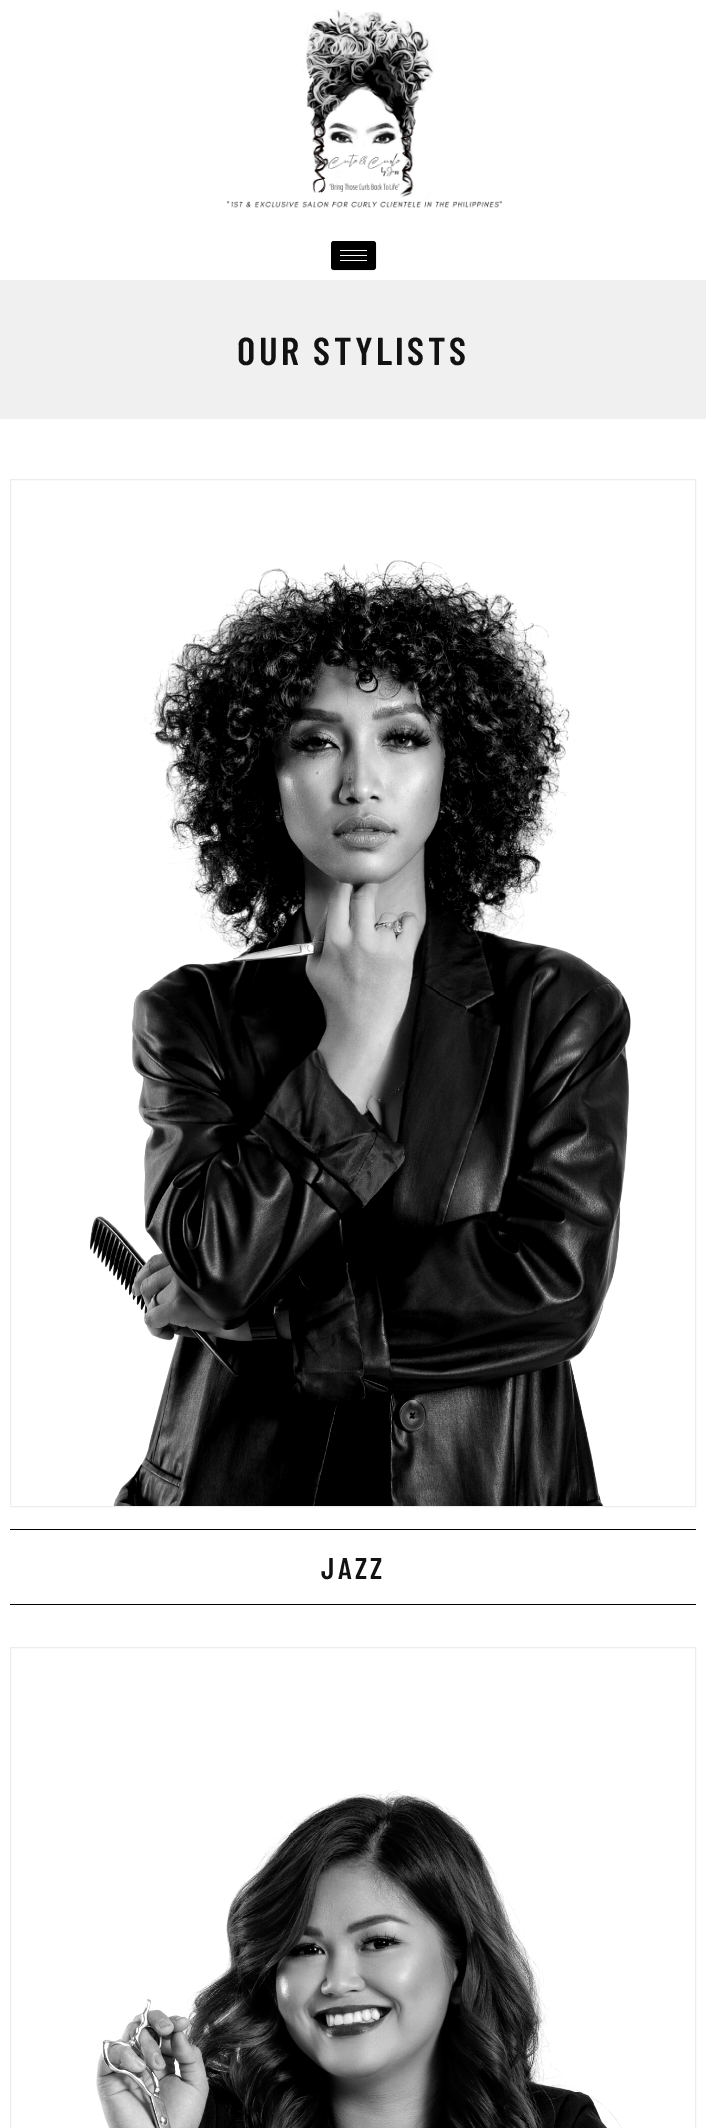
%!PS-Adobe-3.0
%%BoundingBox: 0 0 706 2128
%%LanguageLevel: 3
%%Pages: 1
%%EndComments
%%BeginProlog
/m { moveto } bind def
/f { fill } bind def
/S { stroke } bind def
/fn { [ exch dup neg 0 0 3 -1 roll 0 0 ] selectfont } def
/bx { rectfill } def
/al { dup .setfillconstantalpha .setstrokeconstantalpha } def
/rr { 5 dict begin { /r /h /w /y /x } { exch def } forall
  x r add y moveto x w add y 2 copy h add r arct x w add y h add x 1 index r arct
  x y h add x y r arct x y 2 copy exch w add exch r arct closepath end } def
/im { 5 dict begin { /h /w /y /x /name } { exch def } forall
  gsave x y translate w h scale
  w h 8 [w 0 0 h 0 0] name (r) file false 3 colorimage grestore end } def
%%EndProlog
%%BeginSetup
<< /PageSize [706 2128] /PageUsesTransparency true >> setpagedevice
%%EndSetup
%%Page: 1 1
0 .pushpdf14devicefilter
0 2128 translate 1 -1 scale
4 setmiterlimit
1 setgray
0 0 706 2128 bx
(image0.raw) 226 10 276 198 im
0 setgray
331 241 45 29 3 rr f
0.2 al
331.5 241.5 44 28 2.5 rr S
1 al
1 setgray
340 250 27 1 bx
340 255 27 1 bx
340 260 27 1 bx
0.941 setgray
0 280 706 139 bx
/BarlowCondensed-SemiBold 39 fn
0.071 setgray
237 365 m 3.4 0 (OUR STYLISTS) ashow
0.929 setgray
10.5 479.5 685 1027 rectstroke
(image1.raw) 89 560 542 946 im
0 setgray
10 1529 686 1 bx
/BarlowCondensed-SemiBold 30 fn
0.071 setgray
321 1579 m 3.4 0 (JAZZ) ashow
0 setgray
10 1604 686 1 bx
0.929 setgray
10.5 1647.5 685 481 rectstroke
(image2.raw) 96 1790 526 338 im
.poppdf14devicefilter showpage
%%EOF
